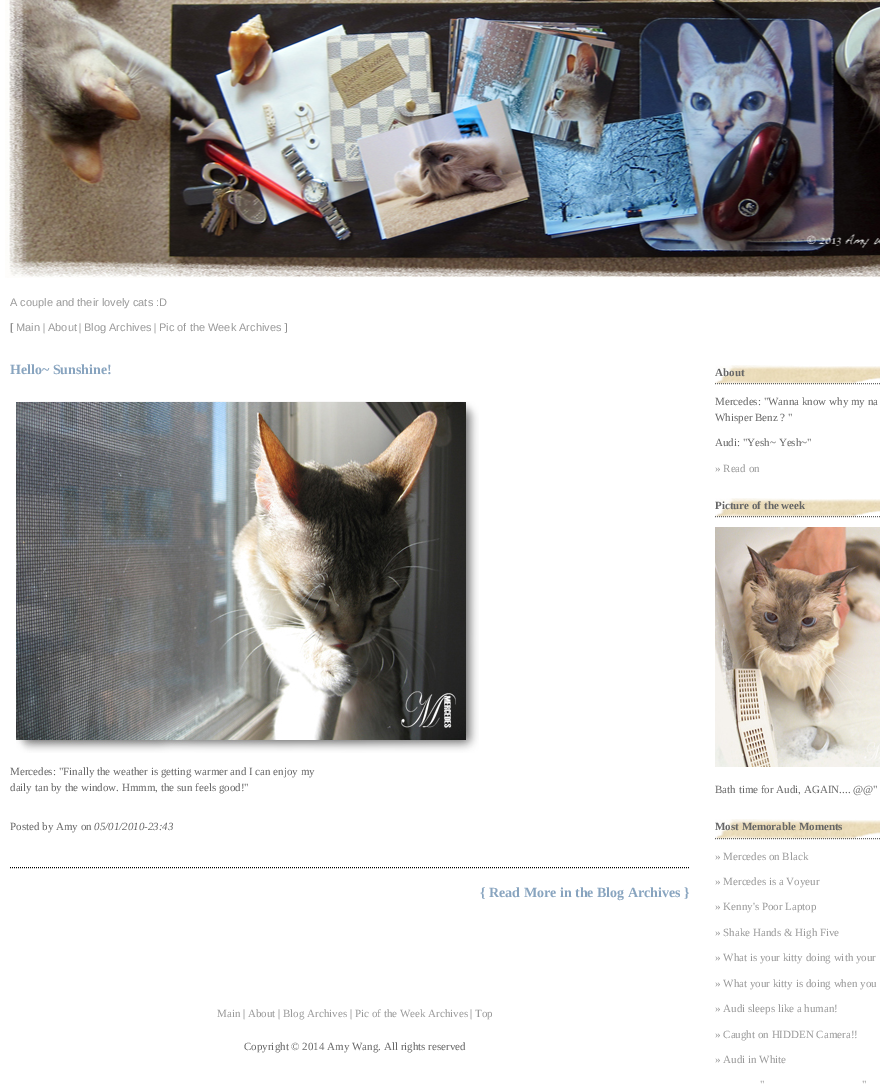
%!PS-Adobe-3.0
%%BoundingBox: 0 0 880 1086
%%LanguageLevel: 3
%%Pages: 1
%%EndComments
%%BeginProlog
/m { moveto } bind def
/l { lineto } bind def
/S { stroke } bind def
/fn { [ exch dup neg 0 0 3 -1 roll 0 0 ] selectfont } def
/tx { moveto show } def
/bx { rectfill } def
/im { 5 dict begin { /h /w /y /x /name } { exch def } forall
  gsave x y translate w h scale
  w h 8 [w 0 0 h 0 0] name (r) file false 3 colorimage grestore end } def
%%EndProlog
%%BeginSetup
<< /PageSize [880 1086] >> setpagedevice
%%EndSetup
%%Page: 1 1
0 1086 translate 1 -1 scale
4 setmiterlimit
1 setgray
0 0 880 1086 bx
(image0.raw) 5 0 875 278 im
/LiberationSans-Regular 11 fn
0.6 setgray
(A couple and their lovely cats :D) 10 306 tx
/LiberationSerif-Regular 11 fn
0.4 setgray
([) 10 331 tx
/LiberationSans-Regular 11 fn
0.6 setgray
(Main) 16 331 tx
/LiberationSerif-Regular 11 fn
0.4 setgray
(|) 43 331 tx
/LiberationSans-Regular 11 fn
0.6 setgray
(About) 48 331 tx
/LiberationSerif-Regular 11 fn
0.4 setgray
(|) 79 331 tx
/LiberationSans-Regular 11 fn
0.6 setgray
(Blog Archives) 84 331 tx
/LiberationSerif-Regular 11 fn
0.4 setgray
(|) 154 331 tx
/LiberationSans-Regular 11 fn
0.6 setgray
(Pic of the Week Archives) 159 331 tx
/LiberationSerif-Regular 11 fn
0.4 setgray
(]) 284 331 tx
/LiberationSerif-Bold 14 fn
0.533 0.643 0.749 setrgbcolor
(Hello~ Sunshine!) 10 374 tx
(image1.raw) 14 401 465 352 im
/LiberationSerif-Regular 11 fn
0.4 setgray
(Mercedes: "Finally the weather is getting warmer and I can enjoy my) 10 775 tx
(daily tan by the window. Hmmm, the sun feels good!") 10 791 tx
(Posted by Amy on) 10 830 tx
/LiberationSerif-Italic 11 fn
(05/01/2010-23:43) 94 830 tx
0 setgray
[1 1] 0 setdash
10 867.5 m 690 867.5 l S
/LiberationSerif-Bold 14 fn
0.533 0.643 0.749 setrgbcolor
({ Read More in the Blog Archives }) 480 897 tx
(image2.raw) 715 365 165 19 im
0.4 setgray
715 383.5 m 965 383.5 l S
/LiberationSerif-Bold 11 fn
(About) 715 376 tx
/LiberationSerif-Regular 11 fn
(Mercedes: "Wanna know why my na) 715 405 tx
(Whisper Benz ? ") 715 421 tx
(Audi: "Yesh~ Yesh~") 715 446 tx
0.6 setgray
(» Read on) 715 472 tx
(image2.raw) 715 498 165 19 im
0.4 setgray
715 516.5 m 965 516.5 l S
/LiberationSerif-Bold 11 fn
(Picture of the week) 715 509 tx
(image3.raw) 715 527 165 240 im
/LiberationSerif-Regular 11 fn
(Bath time for Audi, AGAIN.... @@") 715 793 tx
(image4.raw) 715 819 165 20 im
715 838.5 m 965 838.5 l S
/LiberationSerif-Bold 11 fn
(Most Memorable Moments) 715 830 tx
/LiberationSerif-Regular 11 fn
0.6 setgray
(» Mercedes on Black) 715 860 tx
(» Mercedes is a Voyeur) 715 885 tx
(» Kenny's Poor Laptop) 715 910 tx
(» Shake Hands & High Five) 715 936 tx
(» What is your kitty doing with your) 715 961 tx
(» What your kitty is doing when you) 715 987 tx
(» Audi sleeps like a human!) 715 1012 tx
(» Caught on HIDDEN Camera!!) 715 1038 tx
(» Audi in White) 715 1063 tx
(") 760 1088 tx
(") 862 1088 tx
(Main) 217 1017 tx
0.4 setgray
(|) 243 1017 tx
0.6 setgray
(About) 248 1017 tx
0.4 setgray
(|) 278 1017 tx
0.6 setgray
(Blog Archives) 283 1017 tx
0.4 setgray
(|) 350 1017 tx
0.6 setgray
(Pic of the Week Archives) 355 1017 tx
0.4 setgray
(|) 470 1017 tx
0.6 setgray
(Top) 475 1017 tx
0.4 setgray
(Copyright © 2014 Amy Wang. All rights reserved) 244 1050 tx
showpage
%%EOF
